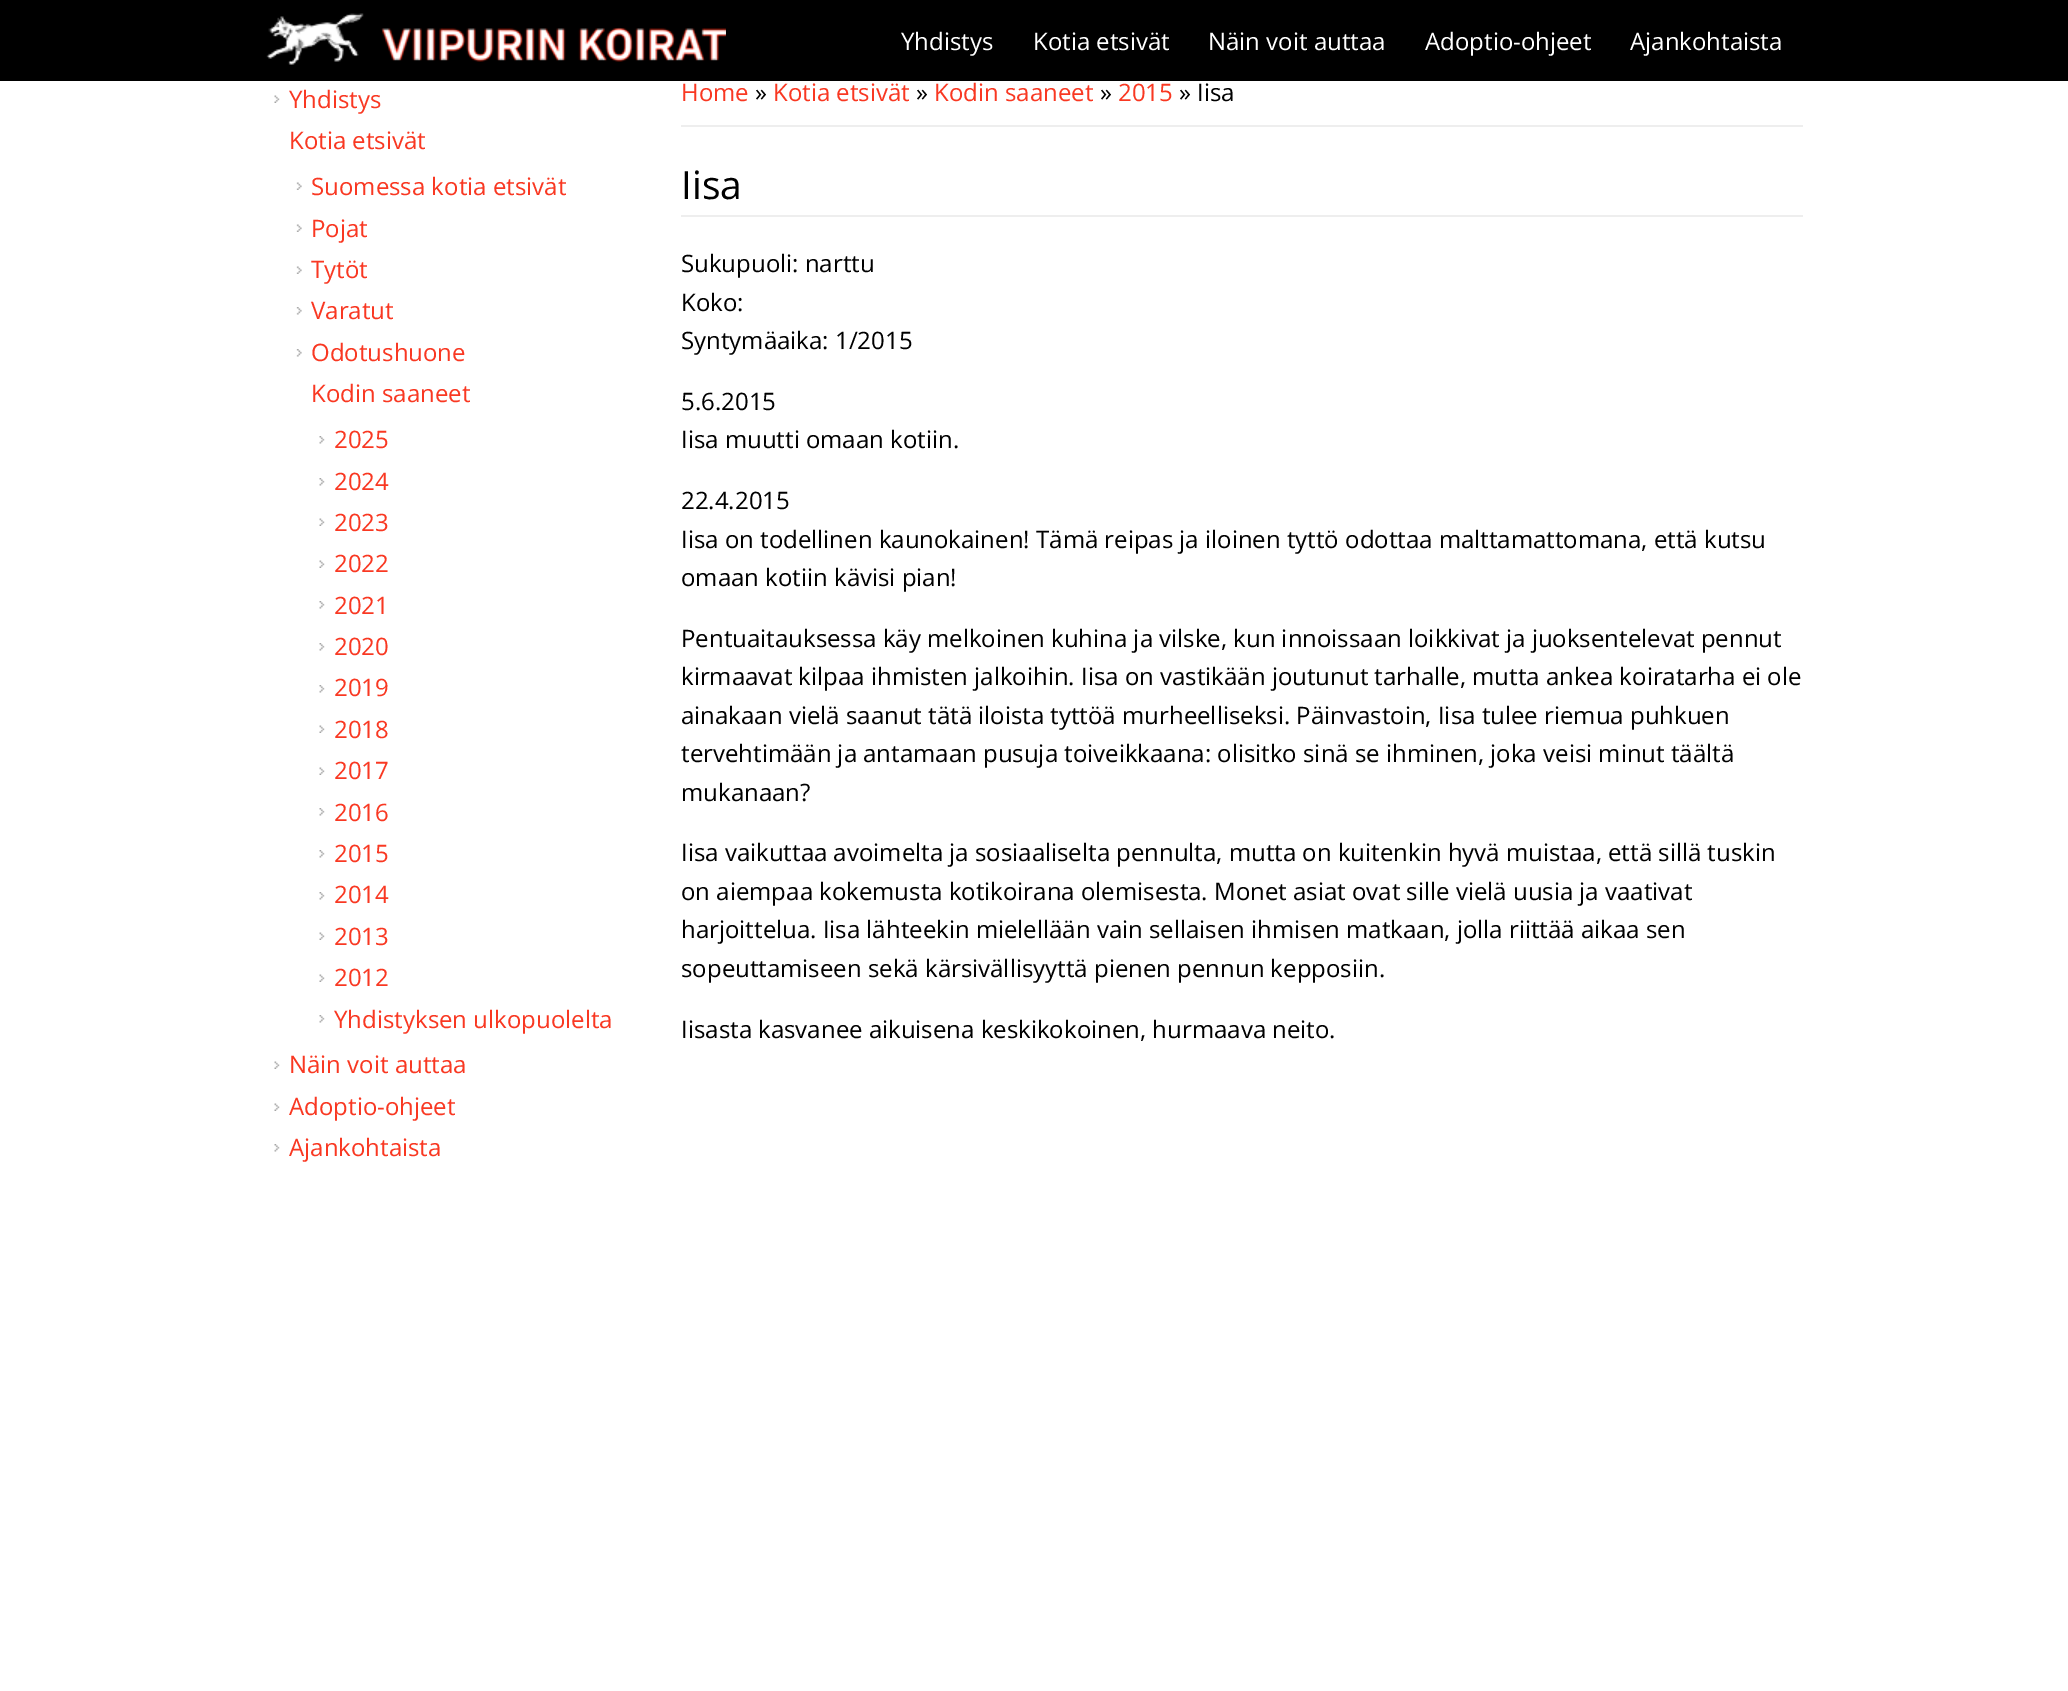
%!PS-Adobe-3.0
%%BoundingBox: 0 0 2068 1691
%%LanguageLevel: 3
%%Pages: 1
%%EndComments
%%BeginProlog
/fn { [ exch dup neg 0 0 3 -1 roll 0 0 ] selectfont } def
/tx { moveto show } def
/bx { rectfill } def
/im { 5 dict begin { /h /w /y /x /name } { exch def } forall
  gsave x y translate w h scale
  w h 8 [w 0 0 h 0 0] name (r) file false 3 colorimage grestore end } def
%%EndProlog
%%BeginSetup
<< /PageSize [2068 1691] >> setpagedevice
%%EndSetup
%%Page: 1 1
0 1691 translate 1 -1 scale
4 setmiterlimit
1 setgray
0 0 2068 1691 bx
0 setgray
0 0 2068 81 bx
(image0.raw) 266 13 460 52 im
/OpenSans-Regular 24 fn
1 setgray
(Yhdistys) 901 50 tx
(Kotia etsivät) 1033 50 tx
(Näin voit auttaa) 1208 50 tx
(Adoptio-ohjeet) 1425 50 tx
(Ajankohtaista) 1630 50 tx
(image1.raw) 274 95 6 8 im
0.976 0.22 0.133 setrgbcolor
(Yhdistys) 289 108 tx
(Kotia etsivät) 289 149 tx
(image2.raw) 296 182 6 8 im
(Suomessa kotia etsivät) 311 195 tx
(image2.raw) 296 224 6 8 im
(Pojat) 311 237 tx
(image2.raw) 296 266 6 8 im
(Tytöt) 311 278 tx
(image3.raw) 296 307 6 8 im
(Varatut) 311 319 tx
(image3.raw) 296 349 6 8 im
(Odotushuone) 311 361 tx
(Kodin saaneet) 311 402 tx
(image4.raw) 319 436 6 8 im
(2025) 334 448 tx
(image4.raw) 319 478 6 8 im
(2024) 334 490 tx
(image1.raw) 319 518 6 8 im
(2023) 334 531 tx
(image1.raw) 319 560 6 8 im
(2022) 334 572 tx
(image4.raw) 319 601 6 8 im
(2021) 334 614 tx
(image4.raw) 319 643 6 8 im
(2020) 334 655 tx
(image4.raw) 319 685 6 8 im
(2019) 334 696 tx
(image1.raw) 319 725 6 8 im
(2018) 334 738 tx
(image1.raw) 319 767 6 8 im
(2017) 334 779 tx
(image4.raw) 319 808 6 8 im
(2016) 334 821 tx
(image4.raw) 319 850 6 8 im
(2015) 334 862 tx
(image4.raw) 319 892 6 8 im
(2014) 334 903 tx
(image1.raw) 319 932 6 8 im
(2013) 334 945 tx
(image1.raw) 319 974 6 8 im
(2012) 334 986 tx
(image4.raw) 319 1015 6 8 im
(Yhdistyksen ulkopuolelta) 334 1028 tx
(image1.raw) 274 1061 6 8 im
(Näin voit auttaa) 289 1073 tx
(image1.raw) 274 1103 6 8 im
(Adoptio-ohjeet) 289 1115 tx
(image4.raw) 274 1144 6 8 im
(Ajankohtaista) 289 1156 tx
0.933 setgray
681 125 1122 2 bx
0.976 0.22 0.133 setrgbcolor
(Home) 681 101 tx
0 setgray
(») 755 101 tx
0.976 0.22 0.133 setrgbcolor
(Kotia etsivät) 773 101 tx
0 setgray
(») 916 101 tx
0.976 0.22 0.133 setrgbcolor
(Kodin saaneet) 934 101 tx
0 setgray
(») 1100 101 tx
0.976 0.22 0.133 setrgbcolor
(2015) 1118 101 tx
0 setgray
(» Iisa) 1179 101 tx
0.933 setgray
681 215 1122 2 bx
/OpenSans-Regular 39 fn
0 setgray
(Iisa) 681 199 tx
/OpenSans-Regular 24 fn
(Sukupuoli: narttu) 681 272 tx
(Koko:) 681 311 tx
(Syntymäaika: 1/2015) 681 349 tx
(5.6.2015) 681 410 tx
(Iisa muutti omaan kotiin.) 681 448 tx
(22.4.2015) 681 509 tx
(Iisa on todellinen kaunokainen! Tämä reipas ja iloinen tyttö odottaa malttamattomana, että kutsu) 681 548 tx
(omaan kotiin kävisi pian!) 681 586 tx
(Pentuaitauksessa käy melkoinen kuhina ja vilske, kun innoissaan loikkivat ja juoksentelevat pennut) 681 647 tx
(kirmaavat kilpaa ihmisten jalkoihin. Iisa on vastikään joutunut tarhalle, mutta ankea koiratarha ei ole) 681 685 tx
(ainakaan vielä saanut tätä iloista tyttöä murheelliseksi. Päinvastoin, Iisa tulee riemua puhkuen) 681 724 tx
(tervehtimään ja antamaan pusuja toiveikkaana: olisitko sinä se ihminen, joka veisi minut täältä) 681 762 tx
(mukanaan?) 681 801 tx
(Iisa vaikuttaa avoimelta ja sosiaaliselta pennulta, mutta on kuitenkin hyvä muistaa, että sillä tuskin) 681 861 tx
(on aiempaa kokemusta kotikoirana olemisesta. Monet asiat ovat sille vielä uusia ja vaativat) 681 900 tx
(harjoittelua. Iisa lähteekin mielellään vain sellaisen ihmisen matkaan, jolla riittää aikaa sen) 681 938 tx
(sopeuttamiseen sekä kärsivällisyyttä pienen pennun kepposiin.) 681 977 tx
(Iisasta kasvanee aikuisena keskikokoinen, hurmaava neito.) 681 1038 tx
showpage
%%EOF
